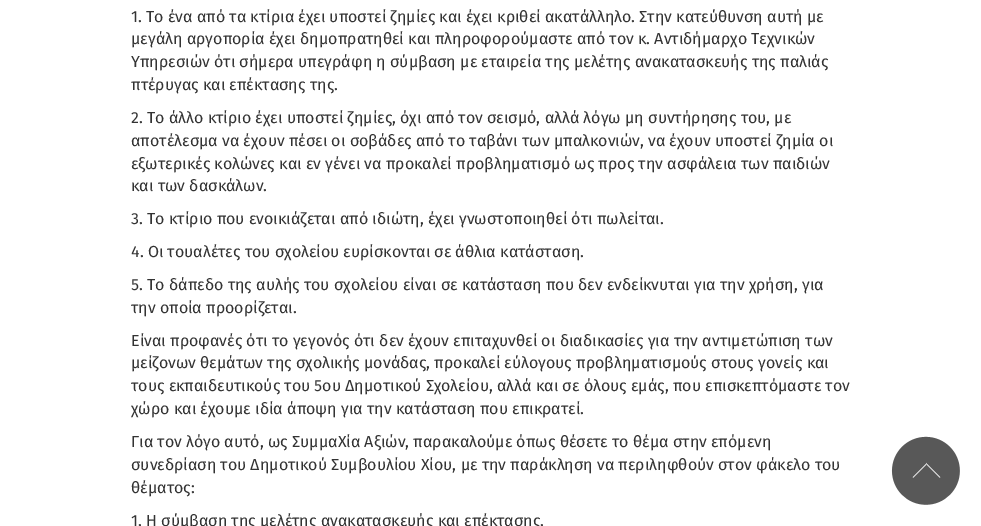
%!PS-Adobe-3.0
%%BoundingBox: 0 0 981 526
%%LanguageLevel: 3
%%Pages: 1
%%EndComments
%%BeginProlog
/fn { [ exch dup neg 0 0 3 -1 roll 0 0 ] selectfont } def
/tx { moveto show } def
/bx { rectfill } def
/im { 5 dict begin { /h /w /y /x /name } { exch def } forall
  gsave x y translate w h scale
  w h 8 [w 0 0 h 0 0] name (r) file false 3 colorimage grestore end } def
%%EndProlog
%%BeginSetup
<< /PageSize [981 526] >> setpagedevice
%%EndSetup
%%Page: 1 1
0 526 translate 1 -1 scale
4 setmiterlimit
1 setgray
0 0 981 526 bx
/FiraSans-Regular 16 fn
0.2 setgray
(1. Το ένα από τα κτίρια έχει υποστεί ζημίες και έχει κριθεί ακατάλληλο. Στην κατεύθυνση αυτή με) 131 22 tx
(μεγάλη αργοπορία έχει δημοπρατηθεί και πληροφορούμαστε από τον κ. Αντιδήμαρχο Τεχνικών) 131 44 tx
(Υπηρεσιών ότι σήμερα υπεγράφη η σύμβαση με εταιρεία της μελέτης ανακατασκευής της παλιάς) 131 67 tx
(πτέρυγας και επέκτασης της.) 131 90 tx
(2. Το άλλο κτίριο έχει υποστεί ζημίες, όχι από τον σεισμό, αλλά λόγω μη συντήρησης του, με) 131 123 tx
(αποτέλεσμα να έχουν πέσει οι σοβάδες από το ταβάνι των μπαλκονιών, να έχουν υποστεί ζημία οι) 131 146 tx
(εξωτερικές κολώνες και εν γένει να προκαλεί προβληματισμό ως προς την ασφάλεια των παιδιών) 131 169 tx
(και των δασκάλων.) 131 191 tx
(3. Το κτίριο που ενοικιάζεται από ιδιώτη, έχει γνωστοποιηθεί ότι πωλείται.) 131 224 tx
(4. Οι τουαλέτες του σχολείου ευρίσκονται σε άθλια κατάσταση.) 131 257 tx
(5. Το δάπεδο της αυλής του σχολείου είναι σε κατάσταση που δεν ενδείκνυται για την χρήση, για) 131 290 tx
(την οποία προορίζεται.) 131 313 tx
(Είναι προφανές ότι το γεγονός ότι δεν έχουν επιταχυνθεί οι διαδικασίες για την αντιμετώπιση των) 131 346 tx
(μείζονων θεμάτων της σχολικής μονάδας, προκαλεί εύλογους προβληματισμούς στους γονείς και) 131 368 tx
(τους εκπαιδευτικούς του 5ου Δημοτικού Σχολείου, αλλά και σε όλους εμάς, που επισκεπτόμαστε τον) 131 391 tx
(χώρο και έχουμε ιδία άποψη για την κατάσταση που επικρατεί.) 131 414 tx
(Για τον λόγο αυτό, ως ΣυμμαΧία Αξιών, παρακαλούμε όπως θέσετε το θέμα στην επόμενη) 131 447 tx
(συνεδρίαση του Δημοτικού Συμβουλίου Χίου, με την παράκληση να περιληφθούν στον φάκελο του) 131 470 tx
(θέματος:) 131 493 tx
(1. Η σύμβαση της μελέτης ανακατασκευής και επέκτασης.) 131 526 tx
(image0.raw) 891 436 69 69 im
showpage
%%EOF
